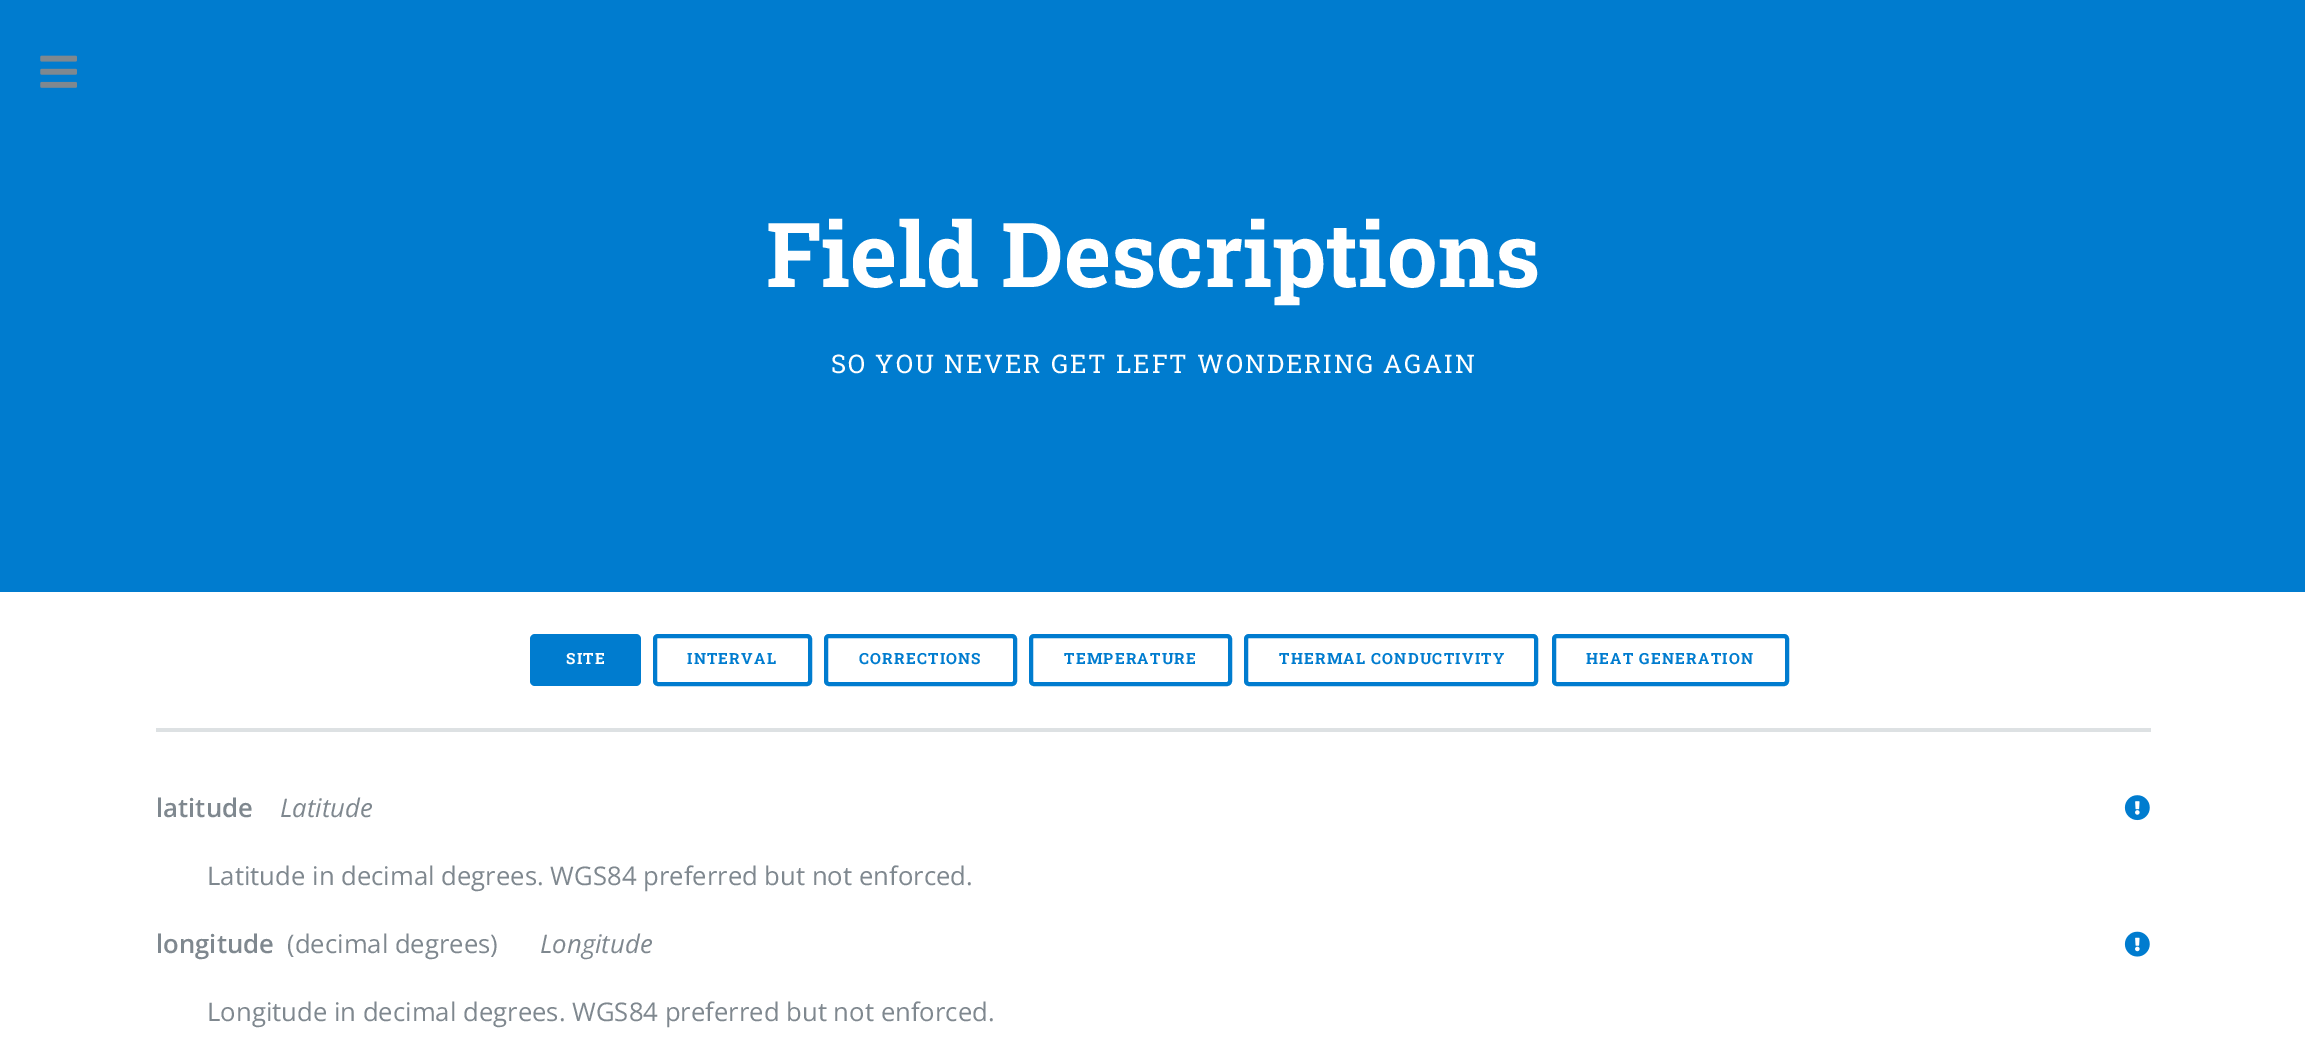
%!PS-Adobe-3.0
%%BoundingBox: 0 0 2305 1048
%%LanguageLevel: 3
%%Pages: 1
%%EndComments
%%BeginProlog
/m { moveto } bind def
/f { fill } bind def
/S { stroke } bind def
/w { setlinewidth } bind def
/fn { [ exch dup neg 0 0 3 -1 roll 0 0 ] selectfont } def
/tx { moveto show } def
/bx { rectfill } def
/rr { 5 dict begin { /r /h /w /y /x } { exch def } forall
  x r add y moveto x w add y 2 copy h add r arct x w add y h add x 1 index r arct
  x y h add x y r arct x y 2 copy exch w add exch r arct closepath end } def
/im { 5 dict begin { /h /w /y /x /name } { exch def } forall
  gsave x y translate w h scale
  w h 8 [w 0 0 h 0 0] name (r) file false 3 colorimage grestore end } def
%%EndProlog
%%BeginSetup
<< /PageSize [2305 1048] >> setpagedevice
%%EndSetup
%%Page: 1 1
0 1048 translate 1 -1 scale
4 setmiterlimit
1 setgray
0 0 2305 1048 bx
0 0.486 0.812 setrgbcolor
0 0 2305 592 bx
(image0.raw) 40 55 37 33 im
/RobotoSlab-Bold 89.75 fn
1 setgray
(Field Descriptions) 766 287 tx
/RobotoSlab-Regular 25.7 fn
831 373 m 1.95 0 (SO YOU NEVER GET LEFT WONDERING AGAIN) ashow
0 0.486 0.812 setrgbcolor
530 634 111 52 5 rr f
/RobotoSlab-Bold 15.4 fn
1 setgray
566 664 m 1.2 0 (SITE) ashow
0 0.486 0.812 setrgbcolor
4 w
655 636 155 48 3 rr S
687 664 m 1.2 0 (INTERVAL) ashow
826 636 189 48 3 rr S
859 664 m 1.2 0 (CORRECTIONS) ashow
1031 636 199 48 3 rr S
1064 664 m 1.2 0 (TEMPERATURE) ashow
1246 636 290 48 3 rr S
1279 664 m 1.2 0 (THERMAL CONDUCTIVITY) ashow
1554 636 233 48 3 rr S
1586 664 m 1.2 0 (HEAT GENERATION) ashow
0.867 0.882 0.89 setrgbcolor
156 728 1995 4 bx
/OpenSans-SemiBold 25.7 fn
0.498 0.533 0.561 setrgbcolor
(latitude) 156 817 tx
/OpenSans-Italic 25.7 fn
(Latitude) 280 817 tx
(image1.raw) 2124 795 26 26 im
/OpenSans-Regular 25.7 fn
(Latitude in decimal degrees. WGS84 preferred but not enforced.) 207 885 tx
/OpenSans-SemiBold 25.7 fn
(longitude) 156 953 tx
/OpenSans-Regular 25.7 fn
(\(decimal degrees\)) 287 953 tx
/OpenSans-Italic 25.7 fn
(Longitude) 540 953 tx
(image2.raw) 2124 931 26 26 im
/OpenSans-Regular 25.7 fn
(Longitude in decimal degrees. WGS84 preferred but not enforced.) 207 1021 tx
showpage
%%EOF
